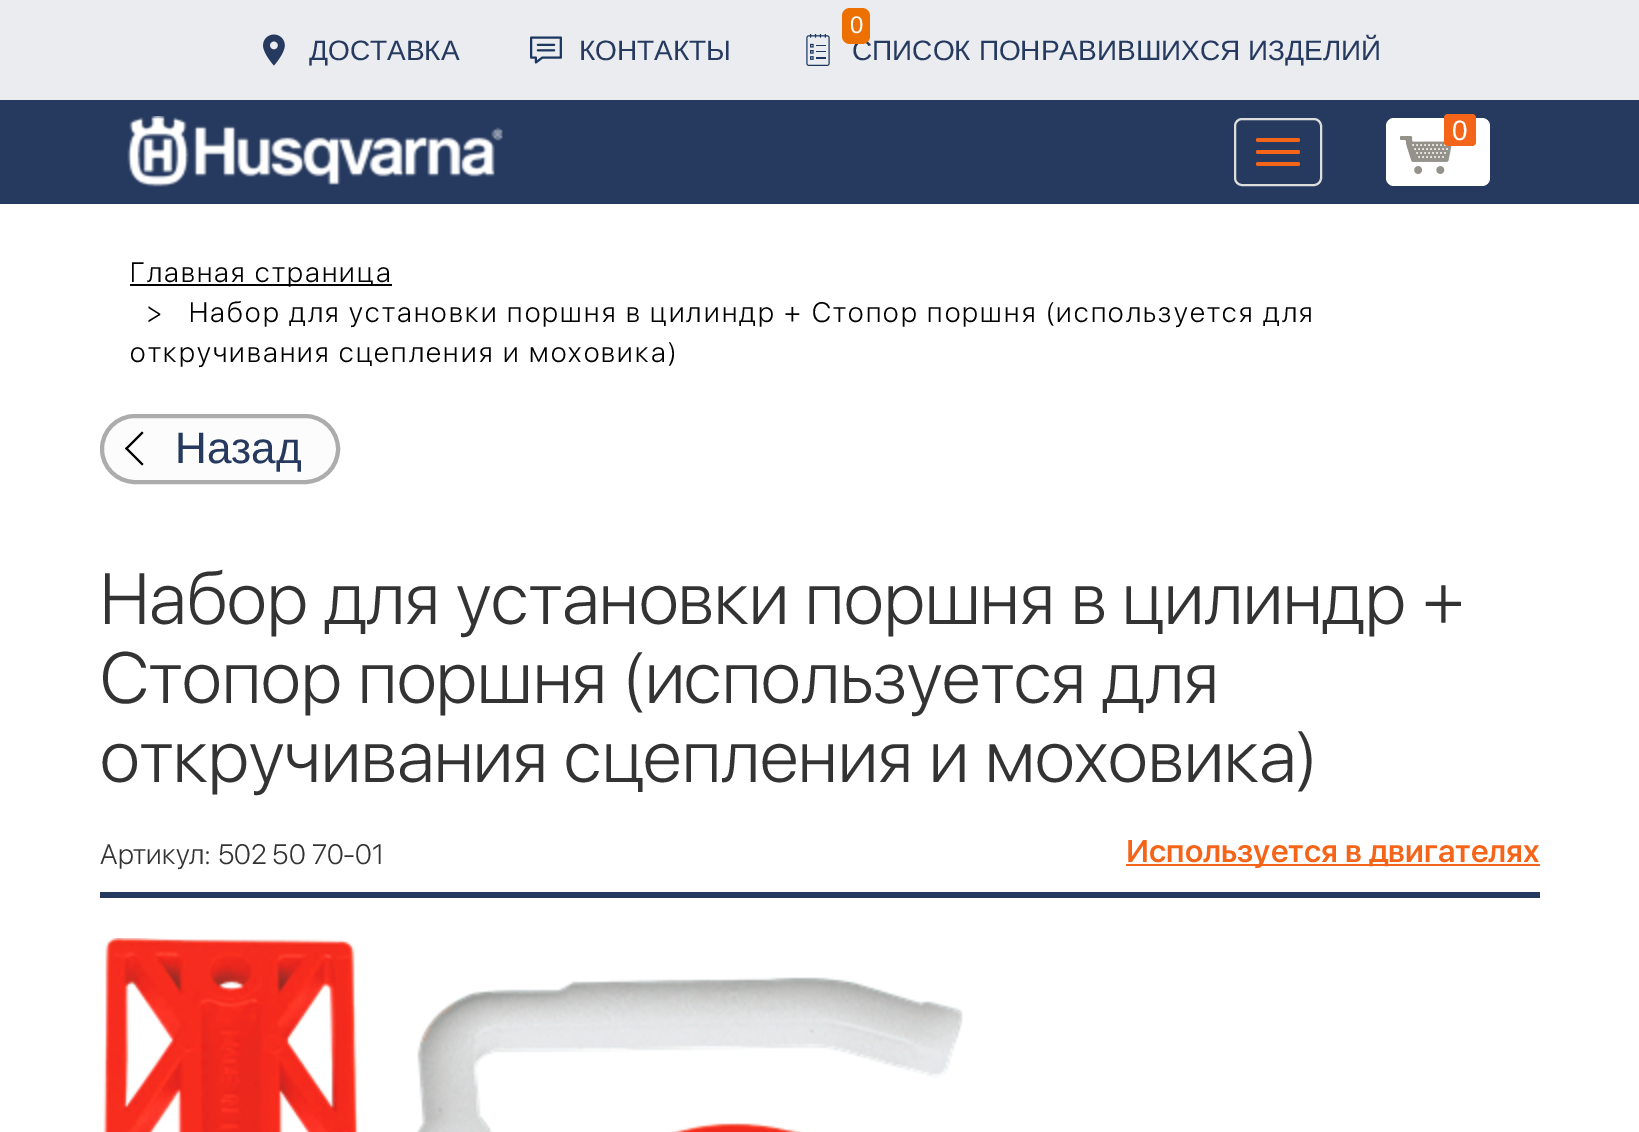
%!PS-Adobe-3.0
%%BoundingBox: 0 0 1639 1132
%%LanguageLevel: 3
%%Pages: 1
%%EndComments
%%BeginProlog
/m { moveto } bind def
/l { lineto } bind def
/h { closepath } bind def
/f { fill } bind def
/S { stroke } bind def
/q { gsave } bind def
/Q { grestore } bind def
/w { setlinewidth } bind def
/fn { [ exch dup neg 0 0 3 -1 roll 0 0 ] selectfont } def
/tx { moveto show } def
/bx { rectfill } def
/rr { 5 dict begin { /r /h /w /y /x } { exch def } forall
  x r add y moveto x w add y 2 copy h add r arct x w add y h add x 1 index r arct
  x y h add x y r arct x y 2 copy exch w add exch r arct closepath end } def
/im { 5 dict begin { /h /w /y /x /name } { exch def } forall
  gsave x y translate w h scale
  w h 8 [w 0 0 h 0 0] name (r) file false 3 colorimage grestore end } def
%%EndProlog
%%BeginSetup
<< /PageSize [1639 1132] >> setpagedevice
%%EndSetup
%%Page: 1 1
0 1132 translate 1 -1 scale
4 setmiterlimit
1 setgray
0 0 1639 1132 bx
0.918 0.925 0.941 setrgbcolor
0 0 1639 100 bx
(image0.raw) 263 34 22 32 im
/LiberationSans-Regular 28 fn
0.149 0.227 0.373 setrgbcolor
(ДОСТАВКА) 309 60 tx
(image1.raw) 530 36 32 28 im
(КОНТАКТЫ) 579 60 tx
(image2.raw) 806 34 24 32 im
(СПИСОК ПОНРАВИВШИХСЯ ИЗДЕЛИЙ) 852 60 tx
0.929 0.443 0.008 setrgbcolor
842 8 28 36 8 rr f
/LiberationSans-Regular 24 fn
1 setgray
(0) 850 33 tx
0.149 0.227 0.373 setrgbcolor
0 100 1639 104 bx
(image3.raw) 127 116 376 71 im
0.867 setgray
2 w
1235 119 86 66 7 rr S
0.957 0.396 0.102 setrgbcolor
1256 138 44 4 2 rr f
1256 150 44 4 2 rr f
1256 162 44 4 2 rr f
1 setgray
1386 118 104 68 8 rr f
(image4.raw) 1400 136 52 38 im
0.957 0.396 0.102 setrgbcolor
1444 114 32 32 4 rr f
/LiberationSans-Regular 28 fn
1 setgray
(0) 1452 140 tx
0 setgray
130 284 262 2 bx
/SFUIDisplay-Light 28 fn
130 282 m 2.2 0 (Главная страница) ashow
146 322 m 2.2 0 (>) ashow
189 322 m 2.2 0 (Набор для установки поршня в цилиндр + Стопор поршня \(используется для) ashow
130 362 m 2.2 0 (откручивания сцепления и моховика\)) ashow
0.988 setgray
102 416 236 66 33 rr q f Q
0.675 setgray
4 w
S
0 setgray
125 448.5 m 142 431.5 l 143.5 433 l 126.5 450 l h f
125 448.5 m 126.5 447 l 143.5 464 l 142 465.5 l h f
/LiberationSans-Regular 44 fn
0.149 0.227 0.373 setrgbcolor
(Назад) 175 463 tx
/SFUIDisplay-Light 72 fn
0.2 setgray
(Набор для установки поршня в цилиндр +) 100 624 tx
(Стопор поршня \(используется для) 100 703 tx
(откручивания сцепления и моховика\)) 100 782 tx
/SFUIDisplay-Light 28 fn
(Артикул: 502 50 70-01) 100 864 tx
0.957 0.396 0.102 setrgbcolor
1126 864 414 2 bx
/SFUIDisplay-SemiBold 32 fn
(Используется в двигателях) 1126 862 tx
0.149 0.227 0.373 setrgbcolor
100 892 1440 6 bx
(image5.raw) 103 938 860 194 im
showpage
%%EOF
